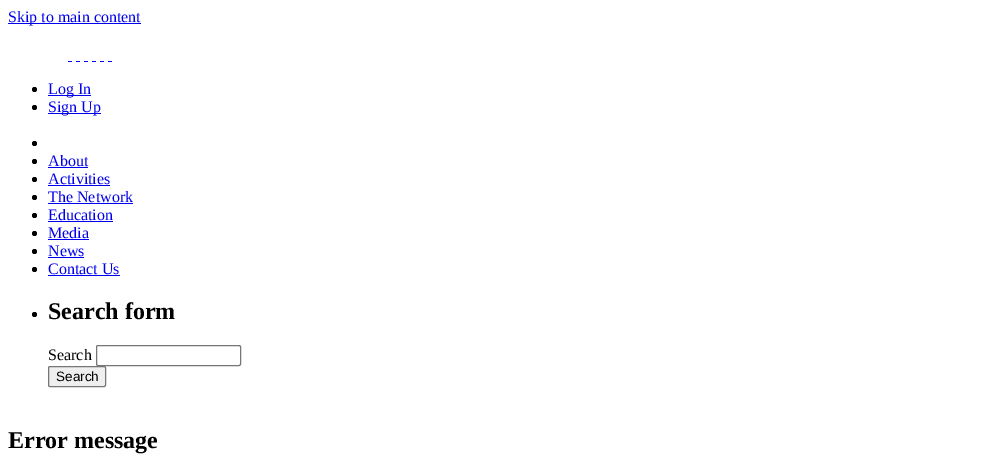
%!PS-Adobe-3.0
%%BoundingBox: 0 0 998 465
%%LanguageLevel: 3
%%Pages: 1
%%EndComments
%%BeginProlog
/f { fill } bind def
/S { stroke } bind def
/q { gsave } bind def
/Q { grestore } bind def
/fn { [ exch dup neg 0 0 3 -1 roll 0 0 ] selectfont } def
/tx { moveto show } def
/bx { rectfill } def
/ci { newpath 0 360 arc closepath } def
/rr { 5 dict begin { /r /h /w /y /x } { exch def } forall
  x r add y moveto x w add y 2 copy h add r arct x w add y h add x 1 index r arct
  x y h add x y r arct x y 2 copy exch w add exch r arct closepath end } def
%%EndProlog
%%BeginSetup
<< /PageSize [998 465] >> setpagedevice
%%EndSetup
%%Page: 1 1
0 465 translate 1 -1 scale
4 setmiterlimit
1 setgray
0 0 998 465 bx
0 0 0.933 setrgbcolor
8 23 133 1 bx
/LiberationSerif-Regular 16 fn
(Skip to main content) 8 22 tx
68 61 4 1 bx
76 61 4 1 bx
84 61 4 1 bx
92 61 4 1 bx
100 61 4 1 bx
108 61 4 1 bx
0 setgray
34.5 89.5 2.5 ci f
0 0 0.933 setrgbcolor
48 95 43 1 bx
(Log In) 48 94 tx
0 setgray
34.5 107.5 2.5 ci f
0 0 0.933 setrgbcolor
48 113 53 1 bx
(Sign Up) 48 112 tx
0 setgray
34.5 143.5 2.5 ci f
34.5 161.5 2.5 ci f
0 0 0.933 setrgbcolor
(About) 48 166 tx
48 167 40 1 bx
0 setgray
34.5 179.5 2.5 ci f
0 0 0.933 setrgbcolor
(Activities) 48 184 tx
48 185 62 1 bx
0 setgray
34.5 197.5 2.5 ci f
0 0 0.933 setrgbcolor
(The Network) 48 202 tx
48 203 85 1 bx
0 setgray
34.5 215.5 2.5 ci f
0 0 0.933 setrgbcolor
(Education) 48 220 tx
48 221 65 1 bx
0 setgray
34.5 233.5 2.5 ci f
0 0 0.933 setrgbcolor
(Media) 48 238 tx
48 239 41 1 bx
0 setgray
34.5 251.5 2.5 ci f
0 0 0.933 setrgbcolor
(News) 48 256 tx
48 257 36 1 bx
0 setgray
34.5 269.5 2.5 ci f
0 0 0.933 setrgbcolor
(Contact Us) 48 274 tx
48 275 72 1 bx
0 setgray
34.5 314.5 2.5 ci f
/LiberationSerif-Bold 24 fn
(Search form) 48 319 tx
/LiberationSerif-Regular 16 fn
(Search) 48 360 tx
0.463 setgray
96.5 345.5 144 20 1.5 rr S
0.937 setgray
48.5 366.5 57 20 1.5 rr q f Q
0.463 setgray
S
/LiberationSans-Regular 13.5 fn
0 setgray
(Search) 56 381 tx
/LiberationSerif-Bold 24 fn
(Error message) 8 448 tx
showpage
%%EOF
